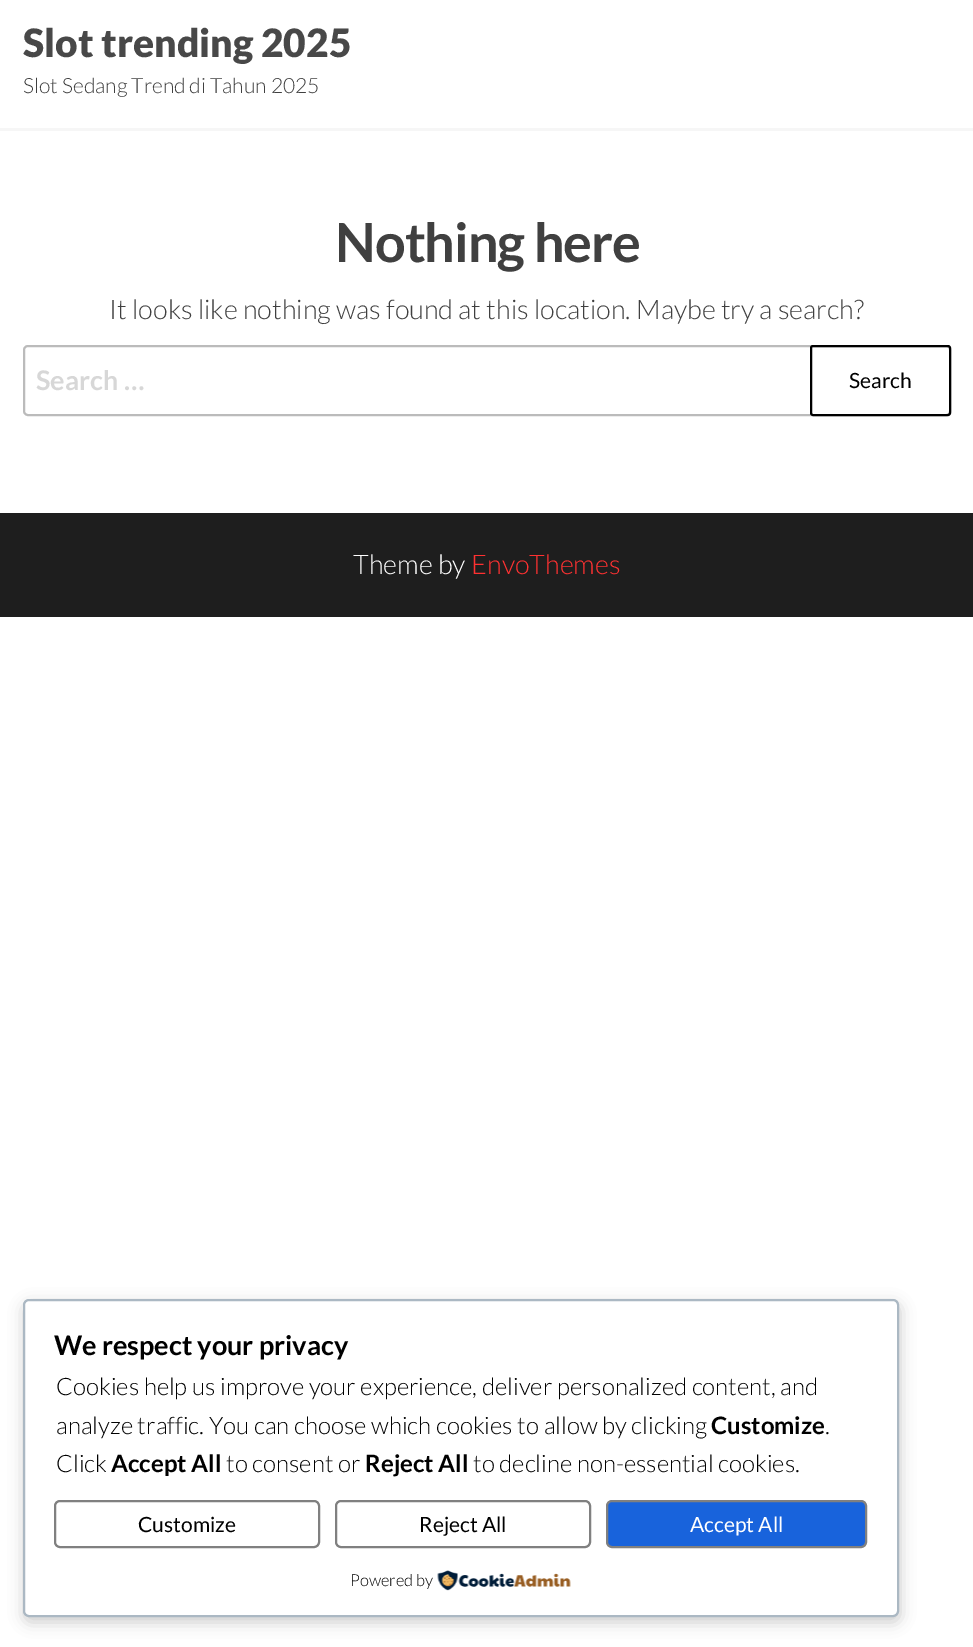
%!PS-Adobe-3.0
%%BoundingBox: 0 0 973 1647
%%LanguageLevel: 3
%%Pages: 1
%%EndComments
%%BeginProlog
/m { moveto } bind def
/f { fill } bind def
/S { stroke } bind def
/q { gsave } bind def
/Q { grestore } bind def
/w { setlinewidth } bind def
/fn { [ exch dup neg 0 0 3 -1 roll 0 0 ] selectfont } def
/tx { moveto show } def
/bx { rectfill } def
/al { dup .setfillconstantalpha .setstrokeconstantalpha } def
/rr { 5 dict begin { /r /h /w /y /x } { exch def } forall
  x r add y moveto x w add y 2 copy h add r arct x w add y h add x 1 index r arct
  x y h add x y r arct x y 2 copy exch w add exch r arct closepath end } def
/sh { 12 dict begin { /a /b /q /h /w /y /x } { exch def } forall gsave /was 0 def
  9 -2 -9 { dup b mul 4 div /e exch def 1 sub .425 mul 2.718 exch exp 1 add a .99 .min exch div /now exch def
    1 1 now sub 1 was sub div sub al /was now def
    w h .min e 2 mul add 0 gt { x e sub y e sub w e 2 mul add h e 2 mul add
      q e add b .6 mul add w h .min 2 div e add .min 0 .max rr fill } if } for grestore end } def
/im { 5 dict begin { /h /w /y /x /name } { exch def } forall
  gsave x y translate w h scale
  w h 8 [w 0 0 h 0 0] name (r) file false 3 colorimage grestore end } def
%%EndProlog
%%BeginSetup
<< /PageSize [973 1647] /PageUsesTransparency true >> setpagedevice
%%EndSetup
%%Page: 1 1
0 .pushpdf14devicefilter
0 1647 translate 1 -1 scale
4 setmiterlimit
1 setgray
0 0 973 1647 bx
/Lato-Black 39 fn
0.282 setgray
(Slot trending 2025) 23 57 tx
/Lato-Light 21 fn
0.251 setgray
(Slot Sedang Trend di Tahun 2025) 23 93 tx
0.965 setgray
0 128 973 3 bx
/Lato-Bold 54 fn
0.251 setgray
335 262 m -1 0 (Nothing here) ashow
/Lato-Light 27 fn
(It looks like nothing was found at this location. Maybe try a search?) 109 319 tx
0.733 setgray
2 w
24 346 926 69 4 rr S
/Lato-Bold 27 fn
0.843 setgray
(Search …) 36 390 tx
0 setgray
811 346 139 69 2 rr S
/Lato-Regular 21 fn
(Search) 849 388 tx
0.118 setgray
0 513 973 104 bx
/Lato-Light 27 fn
1 setgray
(Theme by) 353 574 tx
1 0.192 0.192 setrgbcolor
(EnvoThemes) 471 574 tx
0 setgray
24 1304 876 318 6 7.5 0.2 sh
1 setgray
24 1300 874 316 5 rr q f Q
0.671 0.722 0.765 setrgbcolor
S
/Lato-Bold 27 fn
0 setgray
(We respect your privacy) 54 1355 tx
/Lato-Light 24 fn
(Cookies help us improve your experience, deliver personalized content, and) 56 1395 tx
(analyze traffic. You can choose which cookies to allow by clicking) 56 1434 tx
/Lato-Bold 24 fn
(Customize) 711 1434 tx
/Lato-Light 24 fn
(.) 825 1434 tx
(Click) 56 1472 tx
/Lato-Bold 24 fn
(Accept All) 111 1472 tx
/Lato-Light 24 fn
(to consent or) 226 1472 tx
/Lato-Bold 24 fn
(Reject All) 365 1472 tx
/Lato-Light 24 fn
(to decline non-essential cookies.) 473 1472 tx
0.502 setgray
55 1501 264 46 5 rr S
/Lato-Regular 21 fn
0 setgray
(Customize) 138 1532 tx
0.502 setgray
336 1501 254 46 5 rr S
0 setgray
(Reject All) 419 1532 tx
0.094 0.388 0.863 setrgbcolor
607 1501 259 46 5 rr q f Q
0.502 setgray
S
1 setgray
(Accept All) 690 1532 tx
/Lato-Light 16.5 fn
0 setgray
(Powered by) 350 1586 tx
(image0.raw) 437 1570 134 21 im
.poppdf14devicefilter showpage
%%EOF
